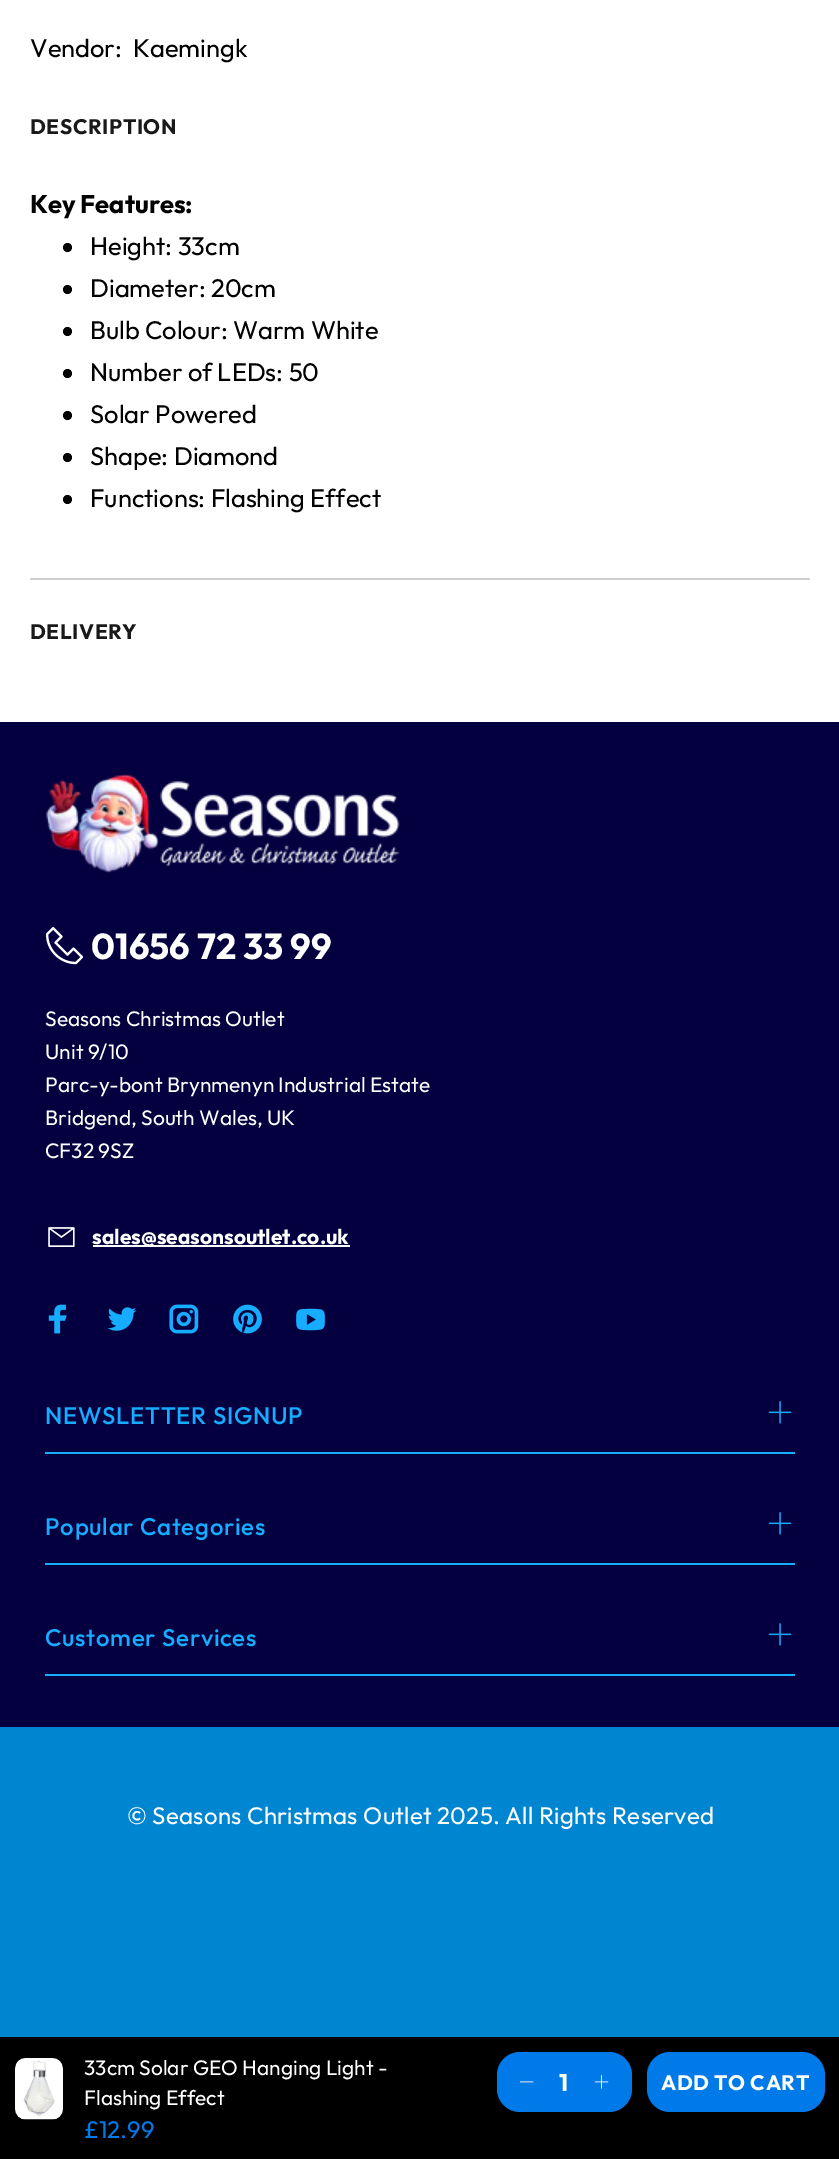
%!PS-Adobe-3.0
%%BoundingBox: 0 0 839 2159
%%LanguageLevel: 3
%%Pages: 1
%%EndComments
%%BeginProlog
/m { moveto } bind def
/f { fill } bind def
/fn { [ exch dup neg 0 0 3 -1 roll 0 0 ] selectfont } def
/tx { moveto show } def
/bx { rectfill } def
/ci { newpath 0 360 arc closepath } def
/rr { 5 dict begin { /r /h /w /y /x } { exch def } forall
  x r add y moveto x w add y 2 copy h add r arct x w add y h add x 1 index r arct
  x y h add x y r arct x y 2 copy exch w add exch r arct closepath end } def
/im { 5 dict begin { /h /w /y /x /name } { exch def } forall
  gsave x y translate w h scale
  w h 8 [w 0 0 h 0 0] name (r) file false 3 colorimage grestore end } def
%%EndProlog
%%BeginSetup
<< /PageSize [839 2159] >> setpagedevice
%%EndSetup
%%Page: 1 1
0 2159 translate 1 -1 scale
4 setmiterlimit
1 setgray
0 0 839 2159 bx
/Outfit-Regular 25.5 fn
0 setgray
(Vendor:) 30 57 tx
(Kaemingk) 133 57 tx
0.812 setgray
30 578 780 2 bx
/Outfit-Bold 21 fn
0.098 setgray
30 134 m 0.6 0 (DESCRIPTION) ashow
/Outfit-Bold 25.5 fn
0 setgray
(Key Features:) 30 213 tx
67.5 247.5 4.5 ci f
/Outfit-Regular 25.5 fn
(Height: 33cm) 90 255 tx
67.5 289.5 4.5 ci f
(Diameter: 20cm) 90 297 tx
67.5 331.5 4.5 ci f
(Bulb Colour: Warm White) 90 339 tx
67.5 373.5 4.5 ci f
(Number of LEDs: 50) 90 381 tx
67.5 415.5 4.5 ci f
(Solar Powered) 90 423 tx
67.5 457.5 4.5 ci f
(Shape: Diamond) 90 465 tx
67.5 499.5 4.5 ci f
(Functions: Flashing Effect) 90 507 tx
/Outfit-Bold 21 fn
0.098 setgray
30 639 m 0.6 0 (DELIVERY) ashow
0 setgray
0 2037 839 122 bx
(image0.raw) 15 2058 48 62 im
/Outfit-Regular 21 fn
1 setgray
(33cm Solar GEO Hanging Light -) 84 2075 tx
(Flashing Effect) 84 2105 tx
/Outfit-Regular 24 fn
0.004 0.478 0.914 setrgbcolor
(£12.99) 84 2138 tx
497 2052 135 60 23 rr f
(image1.raw) 520 2081 14 2 im
/Outfit-Bold 24 fn
1 setgray
(1) 559 2091 tx
(image2.raw) 594 2075 15 14 im
0.004 0.478 0.914 setrgbcolor
647 2052 178 60 23 rr f
/Outfit-Bold 21 fn
1 setgray
661 2090 m 0.6 0 (ADD TO CART) ashow
0.016 0 0.247 setrgbcolor
0 722 839 1005 bx
(image3.raw) 46 774 354 99 im
(image4.raw) 45 927 39 38 im
/Outfit-Bold 36 fn
1 setgray
(01656 72 33 99) 91 959 tx
/Outfit-Regular 21 fn
(Seasons Christmas Outlet) 45 1026 tx
(Unit 9/10) 45 1059 tx
(Parc-y-bont Brynmenyn Industrial Estate) 45 1092 tx
(Bridgend, South Wales, UK) 45 1125 tx
(CF32 9SZ) 45 1158 tx
(image5.raw) 48 1227 27 20 im
93 1245 257 2 bx
/Outfit-Bold 21 fn
(sales@seasonsoutlet.co.uk) 92 1244 tx
(image6.raw) 48 1304 19 30 im
(image7.raw) 107 1307 30 24 im
(image8.raw) 169 1304 30 30 im
(image9.raw) 233 1304 29 30 im
(image10.raw) 296 1308 29 23 im
0.086 0.675 1 setrgbcolor
45 1452 750 2 bx
/Outfit-Medium 24 fn
45 1424 m 0.75 0 (NEWSLETTER SIGNUP) ashow
(image11.raw) 768 1401 24 23 im
45 1563 750 2 bx
45 1535 m 0.75 0 (Popular Categories) ashow
(image11.raw) 768 1512 24 23 im
45 1674 750 2 bx
45 1646 m 0.75 0 (Customer Services) ashow
(image11.raw) 768 1623 24 23 im
0 0.525 0.82 setrgbcolor
0 1727 839 310 bx
/Outfit-Regular 24 fn
1 setgray
127 1824 m 0.25 0 (© Seasons Christmas Outlet 2025. All Rights Reserved) ashow
showpage
%%EOF
